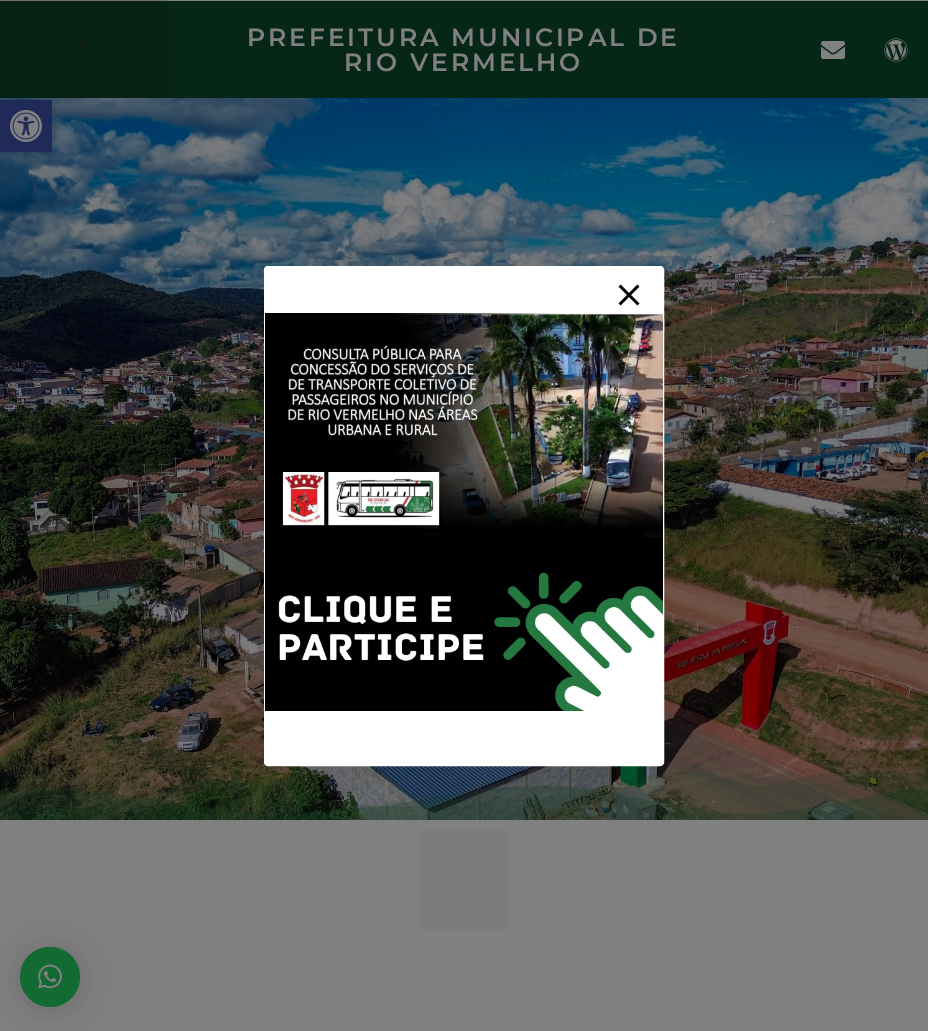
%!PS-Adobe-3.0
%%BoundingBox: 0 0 928 1031
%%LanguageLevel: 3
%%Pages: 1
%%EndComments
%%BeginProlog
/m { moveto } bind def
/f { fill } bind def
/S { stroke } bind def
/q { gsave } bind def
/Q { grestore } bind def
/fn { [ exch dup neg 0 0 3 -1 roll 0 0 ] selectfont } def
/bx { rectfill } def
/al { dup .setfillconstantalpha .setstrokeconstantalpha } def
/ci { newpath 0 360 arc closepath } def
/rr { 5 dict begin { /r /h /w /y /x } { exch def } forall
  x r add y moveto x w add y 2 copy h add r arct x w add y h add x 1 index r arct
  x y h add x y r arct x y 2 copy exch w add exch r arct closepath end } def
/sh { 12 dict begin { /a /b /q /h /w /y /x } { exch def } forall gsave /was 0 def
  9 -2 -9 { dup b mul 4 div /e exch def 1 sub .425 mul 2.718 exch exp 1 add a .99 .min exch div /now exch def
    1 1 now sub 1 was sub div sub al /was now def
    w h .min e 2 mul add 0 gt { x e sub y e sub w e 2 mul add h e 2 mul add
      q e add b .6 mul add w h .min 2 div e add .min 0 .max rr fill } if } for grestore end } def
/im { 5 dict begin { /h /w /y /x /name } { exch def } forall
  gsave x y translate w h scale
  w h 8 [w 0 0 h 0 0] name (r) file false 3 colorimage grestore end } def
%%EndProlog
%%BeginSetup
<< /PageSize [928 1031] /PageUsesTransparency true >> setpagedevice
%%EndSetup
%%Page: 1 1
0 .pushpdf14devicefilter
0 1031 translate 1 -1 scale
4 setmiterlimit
0.502 setgray
0 0 928 1031 bx
0.451 setgray
0 0 167 1 bx
0.024 0.149 0.09 setrgbcolor
167 1 761 97 bx
0.024 0.133 0.082 setrgbcolor
0 1 167 97 bx
(image0.raw) 75 36 18 18 im
/Montserrat-SemiBold 25 fn
0.502 setgray
247 46 m 2.9 0 (PREFEITURA MUNICIPAL DE) ashow
344 71 m 2.9 0 (RIO VERMELHO) ashow
(image1.raw) 821 41 24 18 im
(image2.raw) 884 38 24 24 im
(image3.raw) 0 98 928 722 im
(image4.raw) 0 762 928 58 im
0.494 0.482 0.482 setrgbcolor
421 830 86 100 bx
0 setgray
0 100 52 52 0 5 0.1 sh
0.125 0.165 0.349 setrgbcolor
0 100 52 52 bx
(image5.raw) 10 110 32 32 im
1 setgray
264.5 266.5 399 499 3.5 rr q f Q
S
(image6.raw) 618 284 22 22 im
(image7.raw) 265 313 398 398 im
0 setgray
20 949 60 60 30 16 0.16 sh
0.075 0.416 0.2 setrgbcolor
50 977 30 ci f
(image8.raw) 38 964 24 25 im
.poppdf14devicefilter showpage
%%EOF
